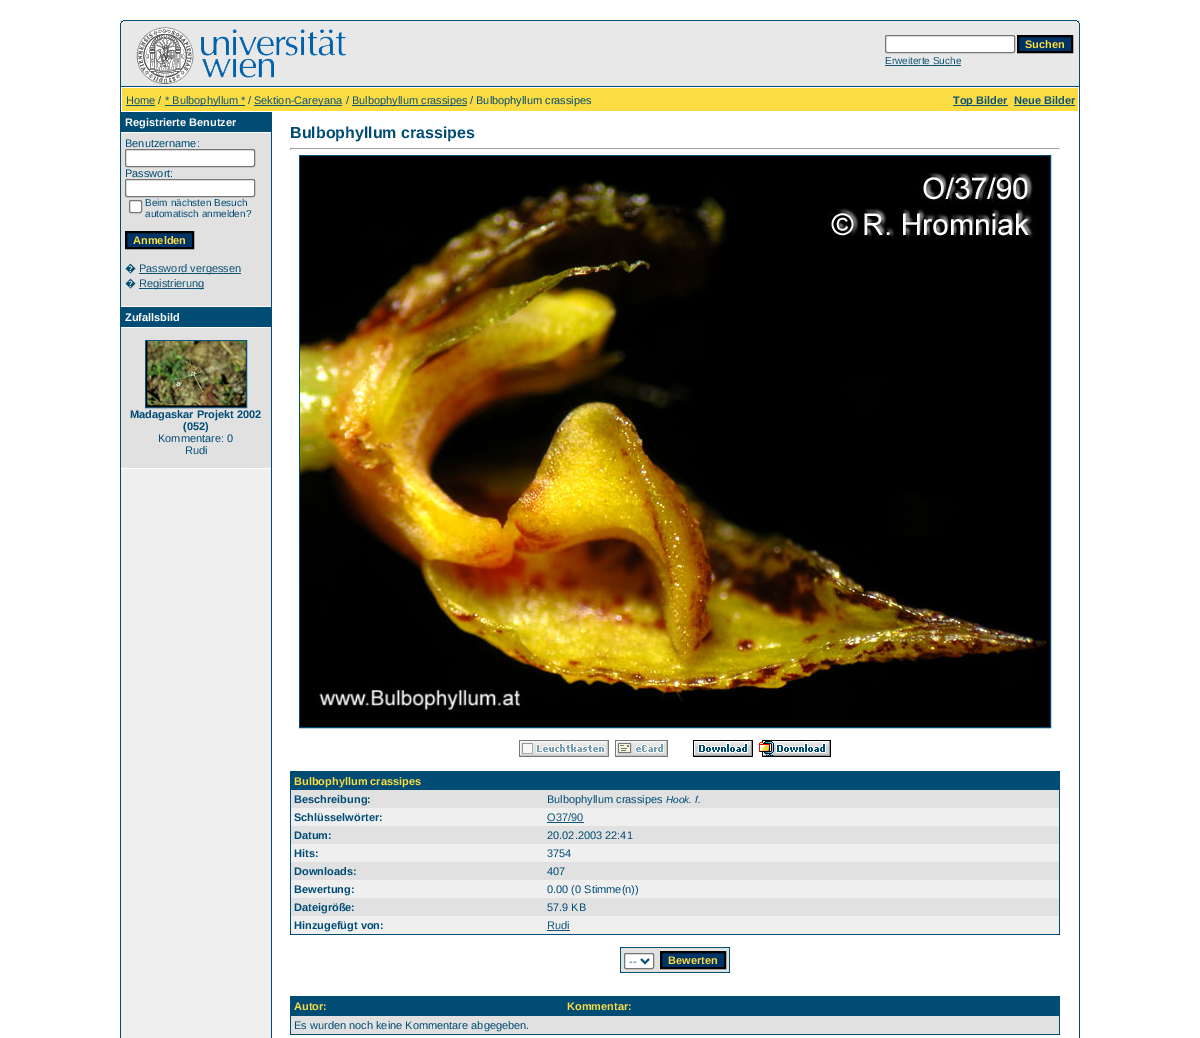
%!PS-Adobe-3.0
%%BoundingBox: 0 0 1200 1038
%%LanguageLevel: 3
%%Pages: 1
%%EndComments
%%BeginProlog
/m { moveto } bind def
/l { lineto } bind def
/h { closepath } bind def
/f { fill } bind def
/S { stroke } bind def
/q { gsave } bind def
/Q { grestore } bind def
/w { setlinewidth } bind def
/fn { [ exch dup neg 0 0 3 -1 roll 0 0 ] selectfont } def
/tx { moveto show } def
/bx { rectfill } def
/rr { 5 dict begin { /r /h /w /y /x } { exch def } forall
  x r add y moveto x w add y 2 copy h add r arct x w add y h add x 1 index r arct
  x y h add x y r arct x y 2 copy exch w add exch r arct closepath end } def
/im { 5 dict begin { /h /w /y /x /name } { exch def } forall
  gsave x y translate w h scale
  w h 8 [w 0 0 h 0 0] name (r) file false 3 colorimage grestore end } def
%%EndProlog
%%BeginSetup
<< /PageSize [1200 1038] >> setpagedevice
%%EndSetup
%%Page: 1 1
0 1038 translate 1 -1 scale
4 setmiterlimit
1 setgray
0 0 1200 1038 bx
0.91 setgray
120 20 960 66 bx
(image0.raw) 120 20 6 6 im
0 0.298 0.459 setrgbcolor
126 20 948 1 bx
(image1.raw) 1074 20 6 6 im
120 26 1 60 bx
(image2.raw) 136 27 211 57 im
1 setgray
885.5 35.5 129 17 1.5 rr q f Q
0.463 setgray
S
0 0.2 0.4 setrgbcolor
1018 36 m 1072 36 l 1072 52 l 1018 52 l h q f Q
0 setgray
2 w
S
/LiberationSans-Bold 11 fn
0.988 0.863 0.263 setrgbcolor
(Suchen) 1025 48 tx
/LiberationSans-Regular 10 fn
0.059 0.329 0.459 setrgbcolor
(Erweiterte Suche) 885 64 tx
885 65 76 1 bx
0 0.298 0.459 setrgbcolor
1079 26 1 60 bx
120 86 960 952 bx
1 setgray
121 87 958 951 bx
0.988 0.863 0.263 setrgbcolor
122 88 956 23 bx
/LiberationSans-Regular 11 fn
0.059 0.329 0.459 setrgbcolor
(Home) 126 104 tx
126 105 29 1 bx
0 0.298 0.459 setrgbcolor
(/) 158 104 tx
0.059 0.329 0.459 setrgbcolor
165 105 80 1 bx
(* Bulbophyllum *) 165 104 tx
0 0.298 0.459 setrgbcolor
(/) 248 104 tx
0.059 0.329 0.459 setrgbcolor
254 105 88 1 bx
(Sektion-Careyana) 254 104 tx
0 0.298 0.459 setrgbcolor
(/) 346 104 tx
0.059 0.329 0.459 setrgbcolor
352 105 115 1 bx
(Bulbophyllum crassipes) 352 104 tx
0 0.298 0.459 setrgbcolor
(/ Bulbophyllum crassipes) 470 104 tx
0.059 0.329 0.459 setrgbcolor
953 105 55 1 bx
/LiberationSans-Bold 11 fn
(Top Bilder) 953 104 tx
(Neue Bilder) 1014 104 tx
1014 105 61 1 bx
0.937 setgray
121 469 150 569 bx
0 0.298 0.459 setrgbcolor
121 112 150 20 bx
1 setgray
(Registrierte Benutzer) 125 126 tx
0.882 setgray
121 133 150 173 bx
/LiberationSans-Regular 11 fn
0 0.298 0.459 setrgbcolor
(Benutzername:) 125 147 tx
1 setgray
125.5 149.5 129 17 1.5 rr q f Q
0.463 setgray
1 w
S
0 0.298 0.459 setrgbcolor
(Passwort:) 125 177 tx
1 setgray
125.5 179.5 129 17 1.5 rr q f Q
0.463 setgray
S
1 setgray
129.5 200.5 12 12 1.5 rr q f Q
0.463 setgray
S
/LiberationSans-Regular 10 fn
0 0.298 0.459 setrgbcolor
(Beim nächsten Besuch) 145 206 tx
(automatisch anmelden?) 145 217 tx
0 0.2 0.4 setrgbcolor
126 232 m 193 232 l 193 248 l 126 248 l h q f Q
0 setgray
2 w
S
/LiberationSans-Bold 11 fn
0.988 0.863 0.263 setrgbcolor
(Anmelden) 133 244 tx
/NotoSans-Regular 11 fn
0 0.298 0.459 setrgbcolor
(�) 125 272 tx
0.059 0.329 0.459 setrgbcolor
139 273 102 1 bx
/LiberationSans-Regular 11 fn
(Password vergessen) 139 272 tx
/NotoSans-Regular 11 fn
0 0.298 0.459 setrgbcolor
(�) 125 287 tx
0.059 0.329 0.459 setrgbcolor
139 288 65 1 bx
/LiberationSans-Regular 11 fn
(Registrierung) 139 287 tx
0 0.298 0.459 setrgbcolor
121 307 150 20 bx
/LiberationSans-Bold 11 fn
1 setgray
(Zufallsbild) 125 321 tx
0.882 setgray
121 328 150 140 bx
0.059 0.329 0.459 setrgbcolor
1 w
145.5 340.5 101 67 rectstroke
(image3.raw) 146 341 100 66 im
0 0.298 0.459 setrgbcolor
(Madagaskar Projekt 2002) 130 418 tx
(\(052\)) 183 430 tx
/LiberationSans-Regular 11 fn
(Kommentare: 0) 158 442 tx
(Rudi) 185 454 tx
271 112 1 926 bx
/LiberationSans-Bold 16 fn
(Bulbophyllum crassipes) 290 138 tx
0.624 setgray
290 148 770 1 bx
0.933 setgray
1059 148 1 2 bx
0.624 setgray
290 148 1 2 bx
0 0.298 0.459 setrgbcolor
299.5 155.5 751 572 rectstroke
(image4.raw) 300 156 750 571 im
(image5.raw) 519 740 90 17 im
(image6.raw) 615 740 53 17 im
(image7.raw) 693 740 60 17 im
(image8.raw) 759 740 72 17 im
290 771 770 164 bx
/LiberationSans-Bold 11 fn
0.988 0.863 0.263 setrgbcolor
(Bulbophyllum crassipes) 294 785 tx
0.882 setgray
291 790 768 18 bx
0 0.298 0.459 setrgbcolor
(Beschreibung:) 294 803 tx
/LiberationSans-Regular 11 fn
(Bulbophyllum crassipes) 547 803 tx
/LiberationSans-Italic 10 fn
(Hook. f.) 666 803 tx
0.937 setgray
291 808 768 18 bx
/LiberationSans-Bold 11 fn
0 0.298 0.459 setrgbcolor
(Schlüsselwörter:) 294 821 tx
/LiberationSans-Regular 11 fn
0.059 0.329 0.459 setrgbcolor
(O37/90) 547 821 tx
547 822 37 1 bx
0.882 setgray
291 826 768 18 bx
/LiberationSans-Bold 11 fn
0 0.298 0.459 setrgbcolor
(Datum:) 294 839 tx
/LiberationSans-Regular 11 fn
(20.02.2003 22:41) 547 839 tx
0.937 setgray
291 844 768 18 bx
/LiberationSans-Bold 11 fn
0 0.298 0.459 setrgbcolor
(Hits:) 294 857 tx
/LiberationSans-Regular 11 fn
(3754) 547 857 tx
0.882 setgray
291 862 768 18 bx
/LiberationSans-Bold 11 fn
0 0.298 0.459 setrgbcolor
(Downloads:) 294 875 tx
/LiberationSans-Regular 11 fn
(407) 547 875 tx
0.937 setgray
291 880 768 18 bx
/LiberationSans-Bold 11 fn
0 0.298 0.459 setrgbcolor
(Bewertung:) 294 893 tx
/LiberationSans-Regular 11 fn
(0.00 \(0 Stimme\(n\)\)) 547 893 tx
0.882 setgray
291 898 768 18 bx
/LiberationSans-Bold 11 fn
0 0.298 0.459 setrgbcolor
(Dateigröße:) 294 911 tx
/LiberationSans-Regular 11 fn
(57.9 KB) 547 911 tx
0.937 setgray
291 916 768 18 bx
/LiberationSans-Bold 11 fn
0 0.298 0.459 setrgbcolor
(Hinzugefügt von:) 294 929 tx
/LiberationSans-Regular 11 fn
0.059 0.329 0.459 setrgbcolor
(Rudi) 547 929 tx
547 930 23 1 bx
0 0.298 0.459 setrgbcolor
620 947 110 26 bx
0.882 setgray
621 948 108 24 bx
1 setgray
624.5 953.5 29 15 1.5 rr q f Q
0.463 setgray
S
0.059 0.329 0.459 setrgbcolor
2 w
641 959 m 645 963 l 649 959 l S
(--) 629 965 tx
0 0.2 0.4 setrgbcolor
661 952 m 725 952 l 725 968 l 661 968 l h q f Q
0 setgray
S
/LiberationSans-Bold 11 fn
0.988 0.863 0.263 setrgbcolor
(Bewerten) 668 964 tx
0 0.298 0.459 setrgbcolor
290 996 770 39 bx
0.988 0.863 0.263 setrgbcolor
(Autor:) 294 1010 tx
(Kommentar:) 567 1010 tx
0.882 setgray
291 1016 768 18 bx
/LiberationSans-Regular 11 fn
0 0.298 0.459 setrgbcolor
(Es wurden noch keine Kommentare abgegeben.) 294 1029 tx
showpage
%%EOF
